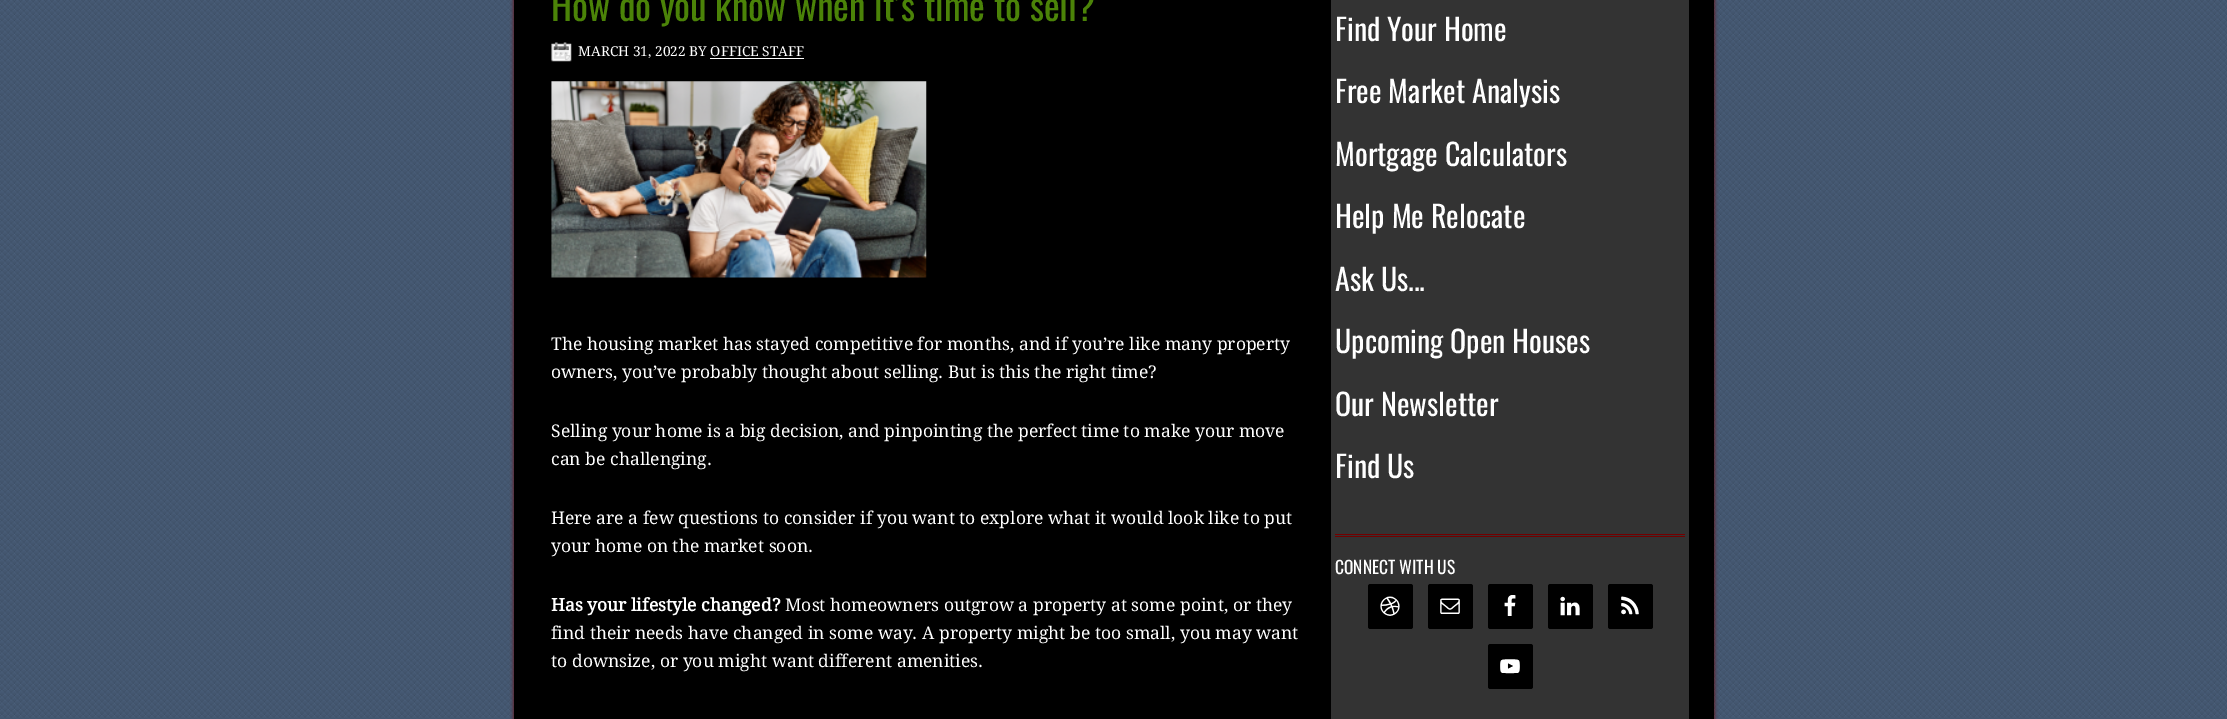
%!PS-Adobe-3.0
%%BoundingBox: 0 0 2227 719
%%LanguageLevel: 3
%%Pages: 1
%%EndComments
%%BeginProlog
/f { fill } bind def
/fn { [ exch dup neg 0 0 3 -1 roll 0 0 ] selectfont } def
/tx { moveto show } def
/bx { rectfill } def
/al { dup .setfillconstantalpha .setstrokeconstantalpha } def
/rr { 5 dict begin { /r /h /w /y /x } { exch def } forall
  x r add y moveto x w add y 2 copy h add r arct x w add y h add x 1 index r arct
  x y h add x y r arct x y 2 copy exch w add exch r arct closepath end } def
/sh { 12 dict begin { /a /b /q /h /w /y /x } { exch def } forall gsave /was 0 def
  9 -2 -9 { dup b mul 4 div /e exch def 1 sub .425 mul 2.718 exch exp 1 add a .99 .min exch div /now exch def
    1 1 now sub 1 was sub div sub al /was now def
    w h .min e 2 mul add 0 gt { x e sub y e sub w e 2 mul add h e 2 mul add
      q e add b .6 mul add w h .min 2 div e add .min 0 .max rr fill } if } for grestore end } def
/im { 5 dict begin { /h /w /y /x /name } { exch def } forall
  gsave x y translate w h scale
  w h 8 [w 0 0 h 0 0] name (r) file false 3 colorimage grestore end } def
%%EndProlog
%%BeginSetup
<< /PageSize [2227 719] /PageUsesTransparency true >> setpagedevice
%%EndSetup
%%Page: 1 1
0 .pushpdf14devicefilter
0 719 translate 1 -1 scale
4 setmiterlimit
1 setgray
0 0 2227 719 bx
(image0.raw) 0 0 2227 719 im
0.447 0 0 setrgbcolor
514 -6 1200 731 0 2 1 sh
0 setgray
514 0 1200 719 bx
/Oswald-Regular 37.5 fn
0.294 0.514 0.031 setrgbcolor
(How do you know when it’s time to sell?) 551 21 tx
(image1.raw) 551 42 21 20 im
/DroidSerif-Regular 13.75 fn
1 setgray
(MARCH 31, 2022 BY OFFICE STAFF) 578 56 tx
710 58 94 1 bx
(image2.raw) 551 81 376 197 im
/DroidSerif-Regular 17.5 fn
(The housing market has stayed competitive for months, and if you’re like many property) 551 350 tx
(owners, you’ve probably thought about selling. But is this the right time?) 551 378 tx
(Selling your home is a big decision, and pinpointing the perfect time to make your move) 551 437 tx
(can be challenging.) 551 465 tx
(Here are a few questions to consider if you want to explore what it would look like to put) 551 524 tx
(your home on the market soon.) 551 552 tx
/DroidSerif-Bold 17.5 fn
(Has your lifestyle changed?) 551 611 tx
/DroidSerif-Regular 17.5 fn
(Most homeowners outgrow a property at some point, or they) 785 611 tx
(find their needs have changed in some way. A property might be too small, you may want) 551 639 tx
(to downsize, or you might want different amenities.) 551 667 tx
0.2 setgray
1331 0 358 719 bx
0.447 0 0 setrgbcolor
1335 534 350 1 bx
1335 536 350 1 bx
/Oswald-Regular 30 fn
1 setgray
(Find Your Home) 1335 41 tx
(Free Market Analysis) 1335 103 tx
(Mortgage Calculators) 1335 166 tx
(Help Me Relocate) 1335 228 tx
(Ask Us...) 1335 291 tx
(Upcoming Open Houses) 1335 353 tx
(Our Newsletter) 1335 416 tx
(Find Us) 1335 478 tx
/Oswald-Regular 17.5 fn
(CONNECT WITH US) 1335 574 tx
0 setgray
1368 584 45 45 2.5 rr f
(image3.raw) 1380 596 20 20 im
1428 584 45 45 2.5 rr f
(image4.raw) 1440 598 20 16 im
1488 584 45 45 2.5 rr f
(image5.raw) 1504 595 12 21 im
1548 584 45 45 2.5 rr f
(image6.raw) 1560 596 20 20 im
1608 584 45 45 2.5 rr f
(image7.raw) 1621 596 18 19 im
1488 644 45 45 2.5 rr f
(image8.raw) 1500 659 20 15 im
.poppdf14devicefilter showpage
%%EOF
